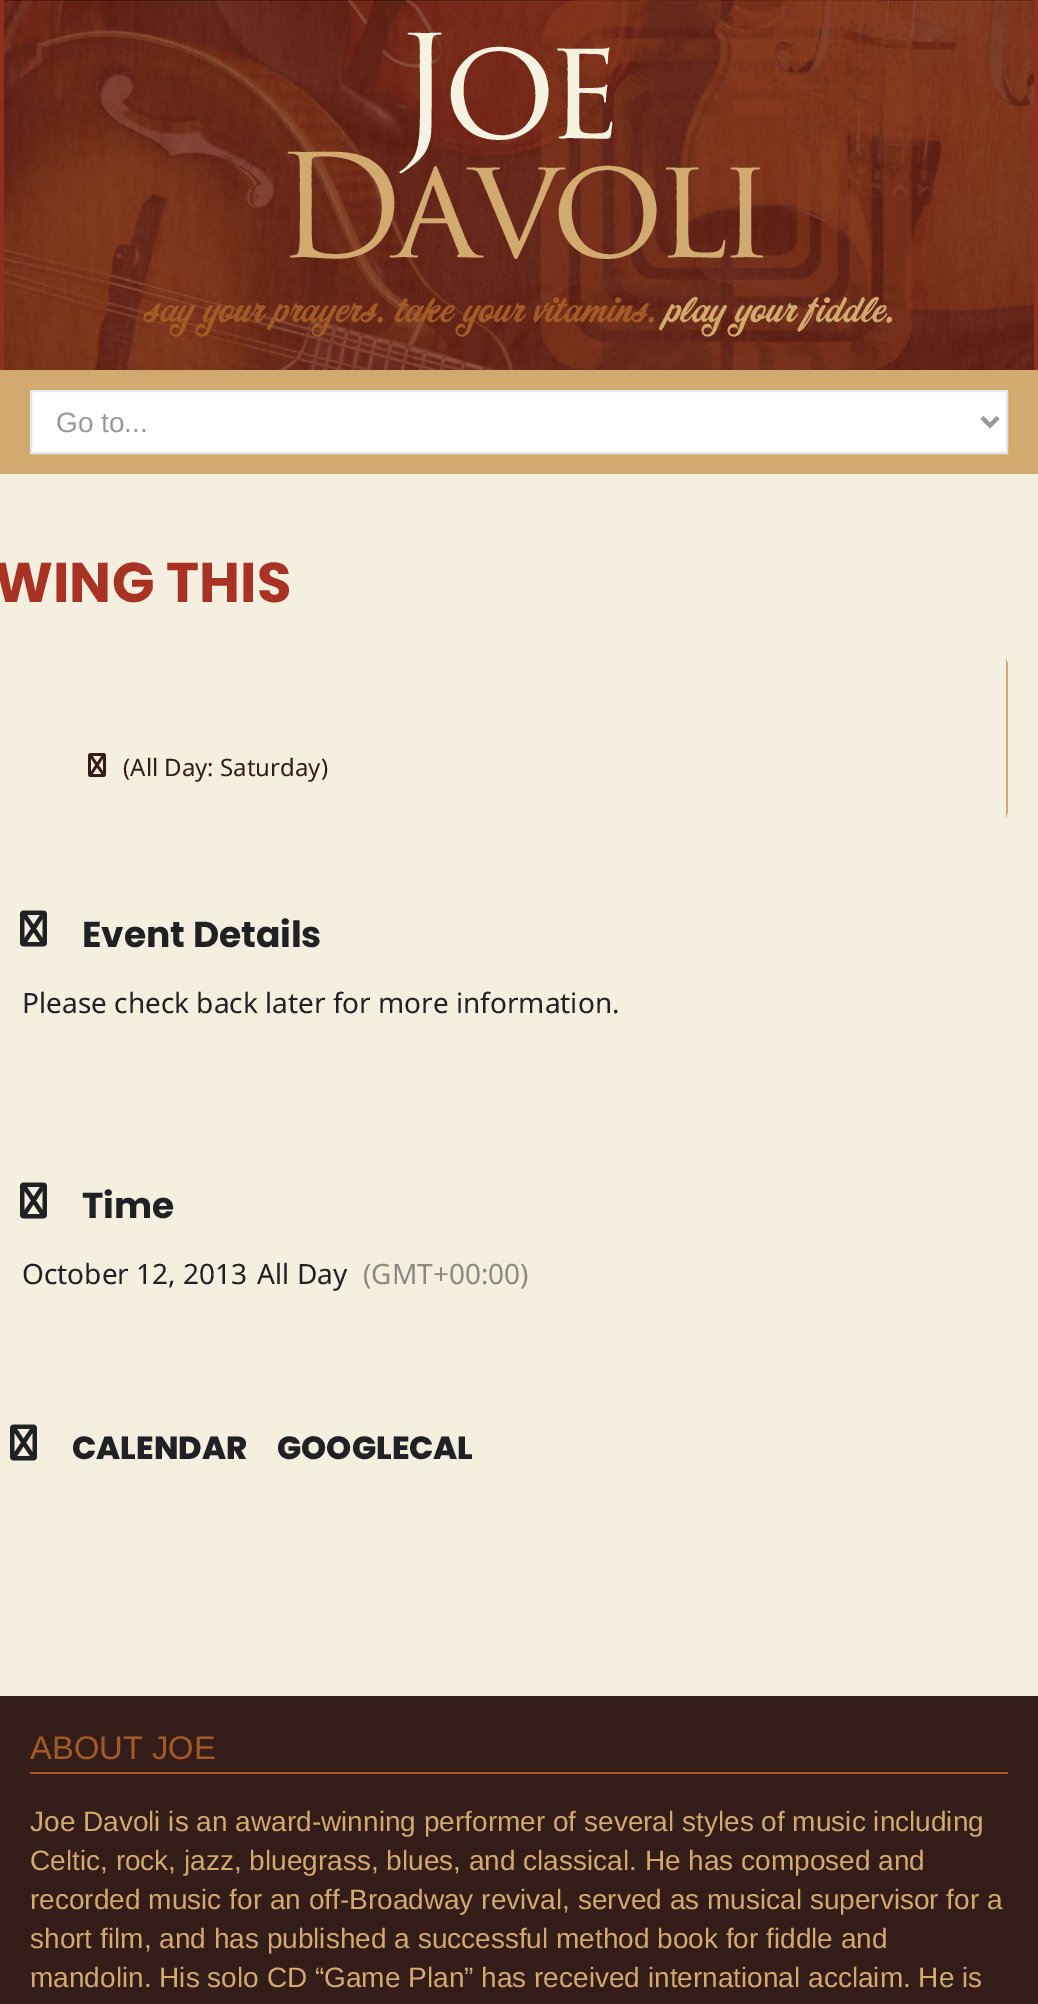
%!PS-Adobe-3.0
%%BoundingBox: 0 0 1038 2004
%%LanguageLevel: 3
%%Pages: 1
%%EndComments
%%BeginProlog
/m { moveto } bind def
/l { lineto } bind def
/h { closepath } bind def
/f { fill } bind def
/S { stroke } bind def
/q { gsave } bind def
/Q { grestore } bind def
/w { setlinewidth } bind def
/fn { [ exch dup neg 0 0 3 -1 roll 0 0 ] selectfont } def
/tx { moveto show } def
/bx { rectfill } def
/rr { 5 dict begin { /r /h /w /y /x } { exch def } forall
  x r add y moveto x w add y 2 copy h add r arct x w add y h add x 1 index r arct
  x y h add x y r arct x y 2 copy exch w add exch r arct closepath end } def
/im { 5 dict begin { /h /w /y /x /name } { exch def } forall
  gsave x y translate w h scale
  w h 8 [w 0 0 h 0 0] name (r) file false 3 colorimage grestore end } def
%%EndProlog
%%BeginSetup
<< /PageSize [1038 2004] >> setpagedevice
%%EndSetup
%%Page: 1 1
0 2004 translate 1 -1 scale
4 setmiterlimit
0.824 0.663 0.431 setrgbcolor
0 0 1038 2004 bx
(image0.raw) 4 0 1030 370 im
0.573 0.18 0.122 setrgbcolor
1034 0 4 370 bx
0 0 4 370 bx
/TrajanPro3-Regular 140 fn
0.965 0.949 0.878 setrgbcolor
395 138 m -10 0 (Joe) ashow
0.824 0.663 0.431 setrgbcolor
275 257 m -10 0 (Davoli) ashow
/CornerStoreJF-Regular 33.6 fn
0.639 0.353 0.149 setrgbcolor
(say your prayers. take your vitamins.) 144 322 tx
0.824 0.663 0.431 setrgbcolor
(play your fiddle.) 665 322 tx
1 setgray
31 391 m 1007 391 l 1007 453 l 31 453 l h q f Q
0.898 setgray
2 w
S
0.6 setgray
4 w
982 417.5 m 990 425.5 l 998 417.5 l S
/LiberationSans-Regular 28 fn
(Go to...) 56 432 tx
0.961 0.937 0.875 setrgbcolor
0 474 1038 1222 bx
/Poppins-Bold 56 fn
0.659 0.196 0.137 setrgbcolor
(WING THIS) -6 602 tx
q
-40 640 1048 196 30 rr clip newpath
0.824 0.663 0.431 setrgbcolor
1006 659 2 158 bx
Q
(image1.raw) 88 753 18 24 im
/NotoSans-Regular 24 fn
0.204 0.114 0.094 setrgbcolor
(\(All Day: Saturday\)) 123 776 tx
(image2.raw) 20 910 27 37 im
/Poppins-Bold 36 fn
0.125 0.129 0.141 setrgbcolor
(Event Details) 82 947 tx
/NotoSans-Regular 28 fn
(Please check back later for more information.) 22 1013 tx
(image2.raw) 20 1182 27 37 im
/Poppins-Bold 36 fn
(Time) 82 1218 tx
/NotoSans-Regular 28 fn
(October 12, 2013) 22 1284 tx
(All Day) 257 1284 tx
0.545 0.533 0.51 setrgbcolor
(\(GMT+00:00\)) 363 1284 tx
(image2.raw) 10 1424 27 37 im
/Poppins-ExtraBold 32 fn
0.125 0.129 0.141 setrgbcolor
(CALENDAR) 72 1459 tx
(GOOGLECAL) 277 1459 tx
0.204 0.114 0.094 setrgbcolor
0 1696 1038 308 bx
0.639 0.353 0.149 setrgbcolor
30 1772 978 2 bx
/LiberationSans-Regular 32.75 fn
(ABOUT JOE) 30 1759 tx
/LiberationSans-Regular 28 fn
0.824 0.663 0.431 setrgbcolor
(Joe Davoli is an award-winning performer of several styles of music including) 30 1831 tx
(Celtic, rock, jazz, bluegrass, blues, and classical. He has composed and) 30 1870 tx
(recorded music for an off-Broadway revival, served as musical supervisor for a) 30 1909 tx
(short film, and has published a successful method book for fiddle and) 30 1948 tx
(mandolin. His solo CD “Game Plan” has received international acclaim. He is) 30 1987 tx
showpage
%%EOF
